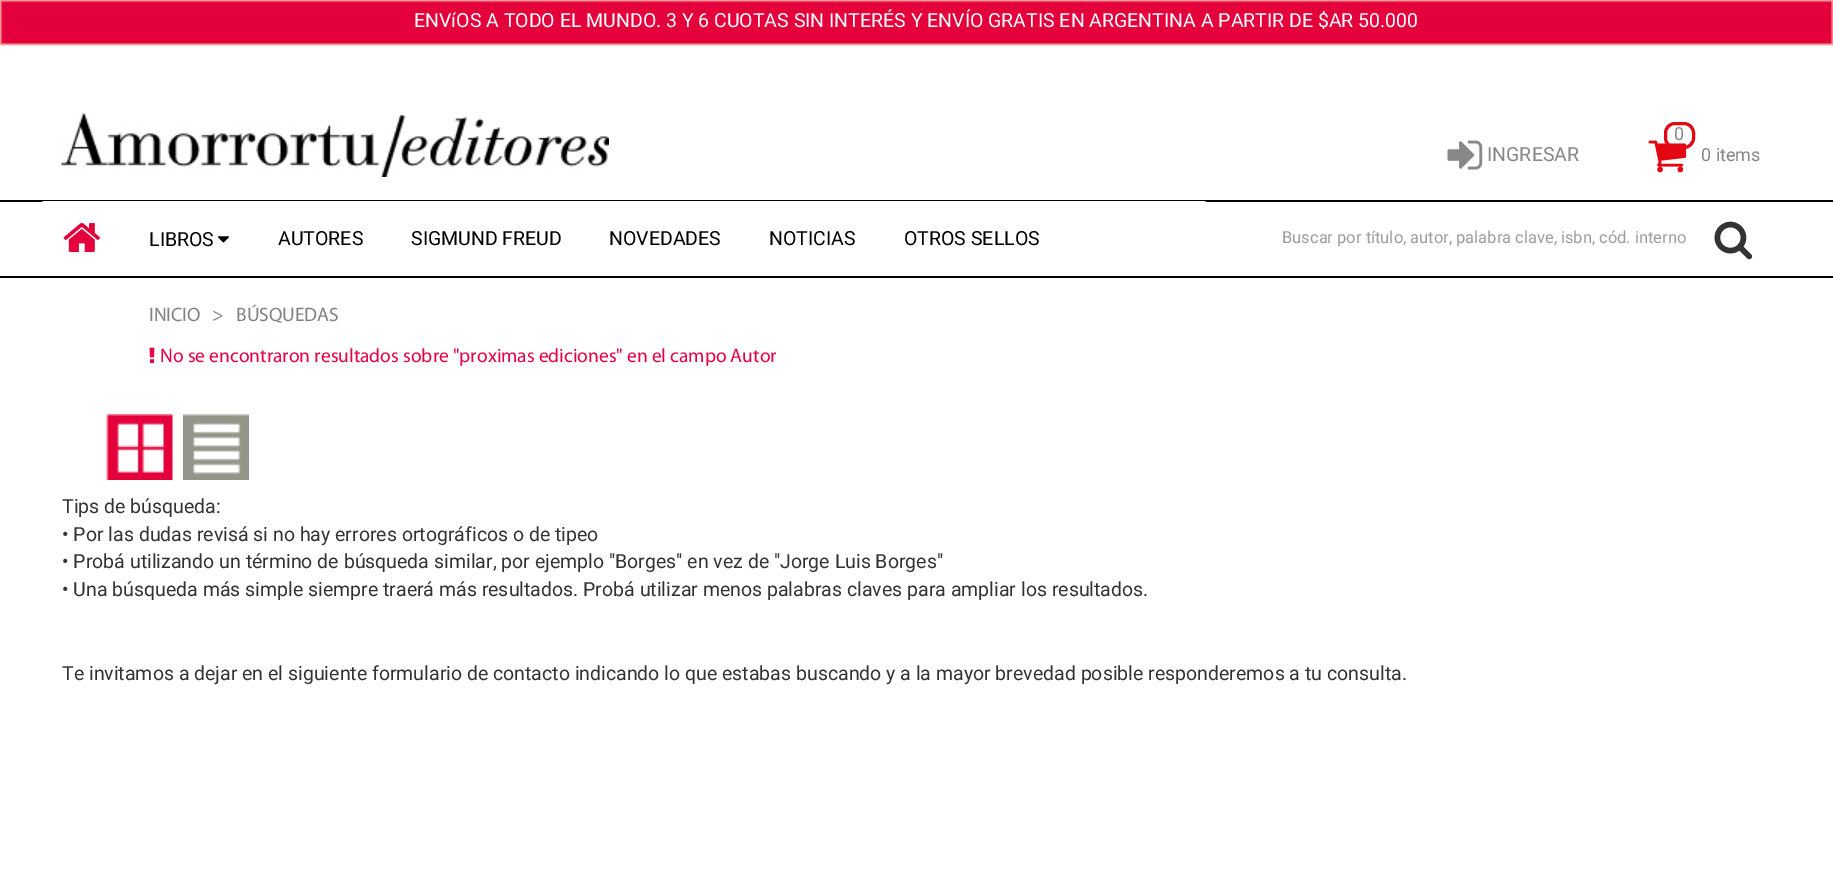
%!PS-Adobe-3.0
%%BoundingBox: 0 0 1833 872
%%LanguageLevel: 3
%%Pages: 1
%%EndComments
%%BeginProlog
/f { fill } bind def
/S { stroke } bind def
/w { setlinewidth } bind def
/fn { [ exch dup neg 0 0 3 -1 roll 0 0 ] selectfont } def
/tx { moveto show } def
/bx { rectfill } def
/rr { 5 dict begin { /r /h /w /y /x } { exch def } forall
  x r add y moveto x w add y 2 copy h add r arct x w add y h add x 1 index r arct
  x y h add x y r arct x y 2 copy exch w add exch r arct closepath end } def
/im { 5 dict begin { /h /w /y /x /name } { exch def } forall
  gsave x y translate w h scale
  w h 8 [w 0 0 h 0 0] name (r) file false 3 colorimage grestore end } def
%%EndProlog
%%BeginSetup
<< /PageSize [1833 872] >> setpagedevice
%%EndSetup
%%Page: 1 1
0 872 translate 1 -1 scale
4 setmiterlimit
1 setgray
0 0 1833 872 bx
1 0.6 0.6 setrgbcolor
2 w
1 1 1831 43 rectstroke
(image0.raw) 1 1 1832 44 im
/Roboto-Regular 19.5 fn
1 setgray
(ENVíOS A TODO EL MUNDO. 3 Y 6 CUOTAS SIN INTERÉS Y ENVÍO GRATIS EN ARGENTINA A PARTIR DE $AR 50.000) 414 27 tx
(image1.raw) 61 112 548 65 im
(image2.raw) 1447 140 36 30 im
0.529 setgray
(INGRESAR) 1487 161 tx
(image3.raw) 1648 140 39 33 im
0.89 0.024 0.075 setrgbcolor
3 w
1665.5 123.5 28 24 9.5 rr S
/Roboto-Regular 18 fn
0.529 setgray
(0) 1674 140 tx
(0 items) 1701 161 tx
0 setgray
0 200 1833 2 bx
0 276 1833 2 bx
1 setgray
39 201 1170 75 6 rr f
(image4.raw) 63 223 37 29 im
/Roboto-Regular 19.5 fn
0 setgray
(LIBROS) 149 246 tx
(image5.raw) 217 236 12 7 im
(AUTORES) 278 245 tx
(SIGMUND FREUD) 411 245 tx
(NOVEDADES) 609 245 tx
(NOTICIAS) 769 245 tx
(OTROS SELLOS) 904 245 tx
/Roboto-Regular 16.5 fn
0.616 0.616 0.612 setrgbcolor
(Buscar por título, autor, palabra clave, isbn, cód. interno) 1282 243 tx
(image6.raw) 1714 221 39 39 im
/Myriad-Regular 19.5 fn
0.502 0.51 0.522 setrgbcolor
(INICIO) 149 321 tx
(>) 212 321 tx
(BÚSQUEDAS) 236 321 tx
(image7.raw) 149 347 6 16 im
0.902 0 0.271 setrgbcolor
(No se encontraron resultados sobre "proximas ediciones" en el campo Autor) 160 362 tx
(image8.raw) 106 414 67 66 im
(image9.raw) 183 414 66 66 im
/Roboto-Regular 19.5 fn
0.2 setgray
(Tips de búsqueda:) 62 513 tx
(• Por las dudas revisá si no hay errores ortográficos o de tipeo) 62 541 tx
(• Probá utilizando un término de búsqueda similar, por ejemplo "Borges" en vez de "Jorge Luis Borges") 62 568 tx
(• Una búsqueda más simple siempre traerá más resultados. Probá utilizar menos palabras claves para ampliar los resultados.) 62 596 tx
(Te invitamos a dejar en el siguiente formulario de contacto indicando lo que estabas buscando y a la mayor brevedad posible responderemos a tu consulta.) 62 680 tx
showpage
%%EOF
